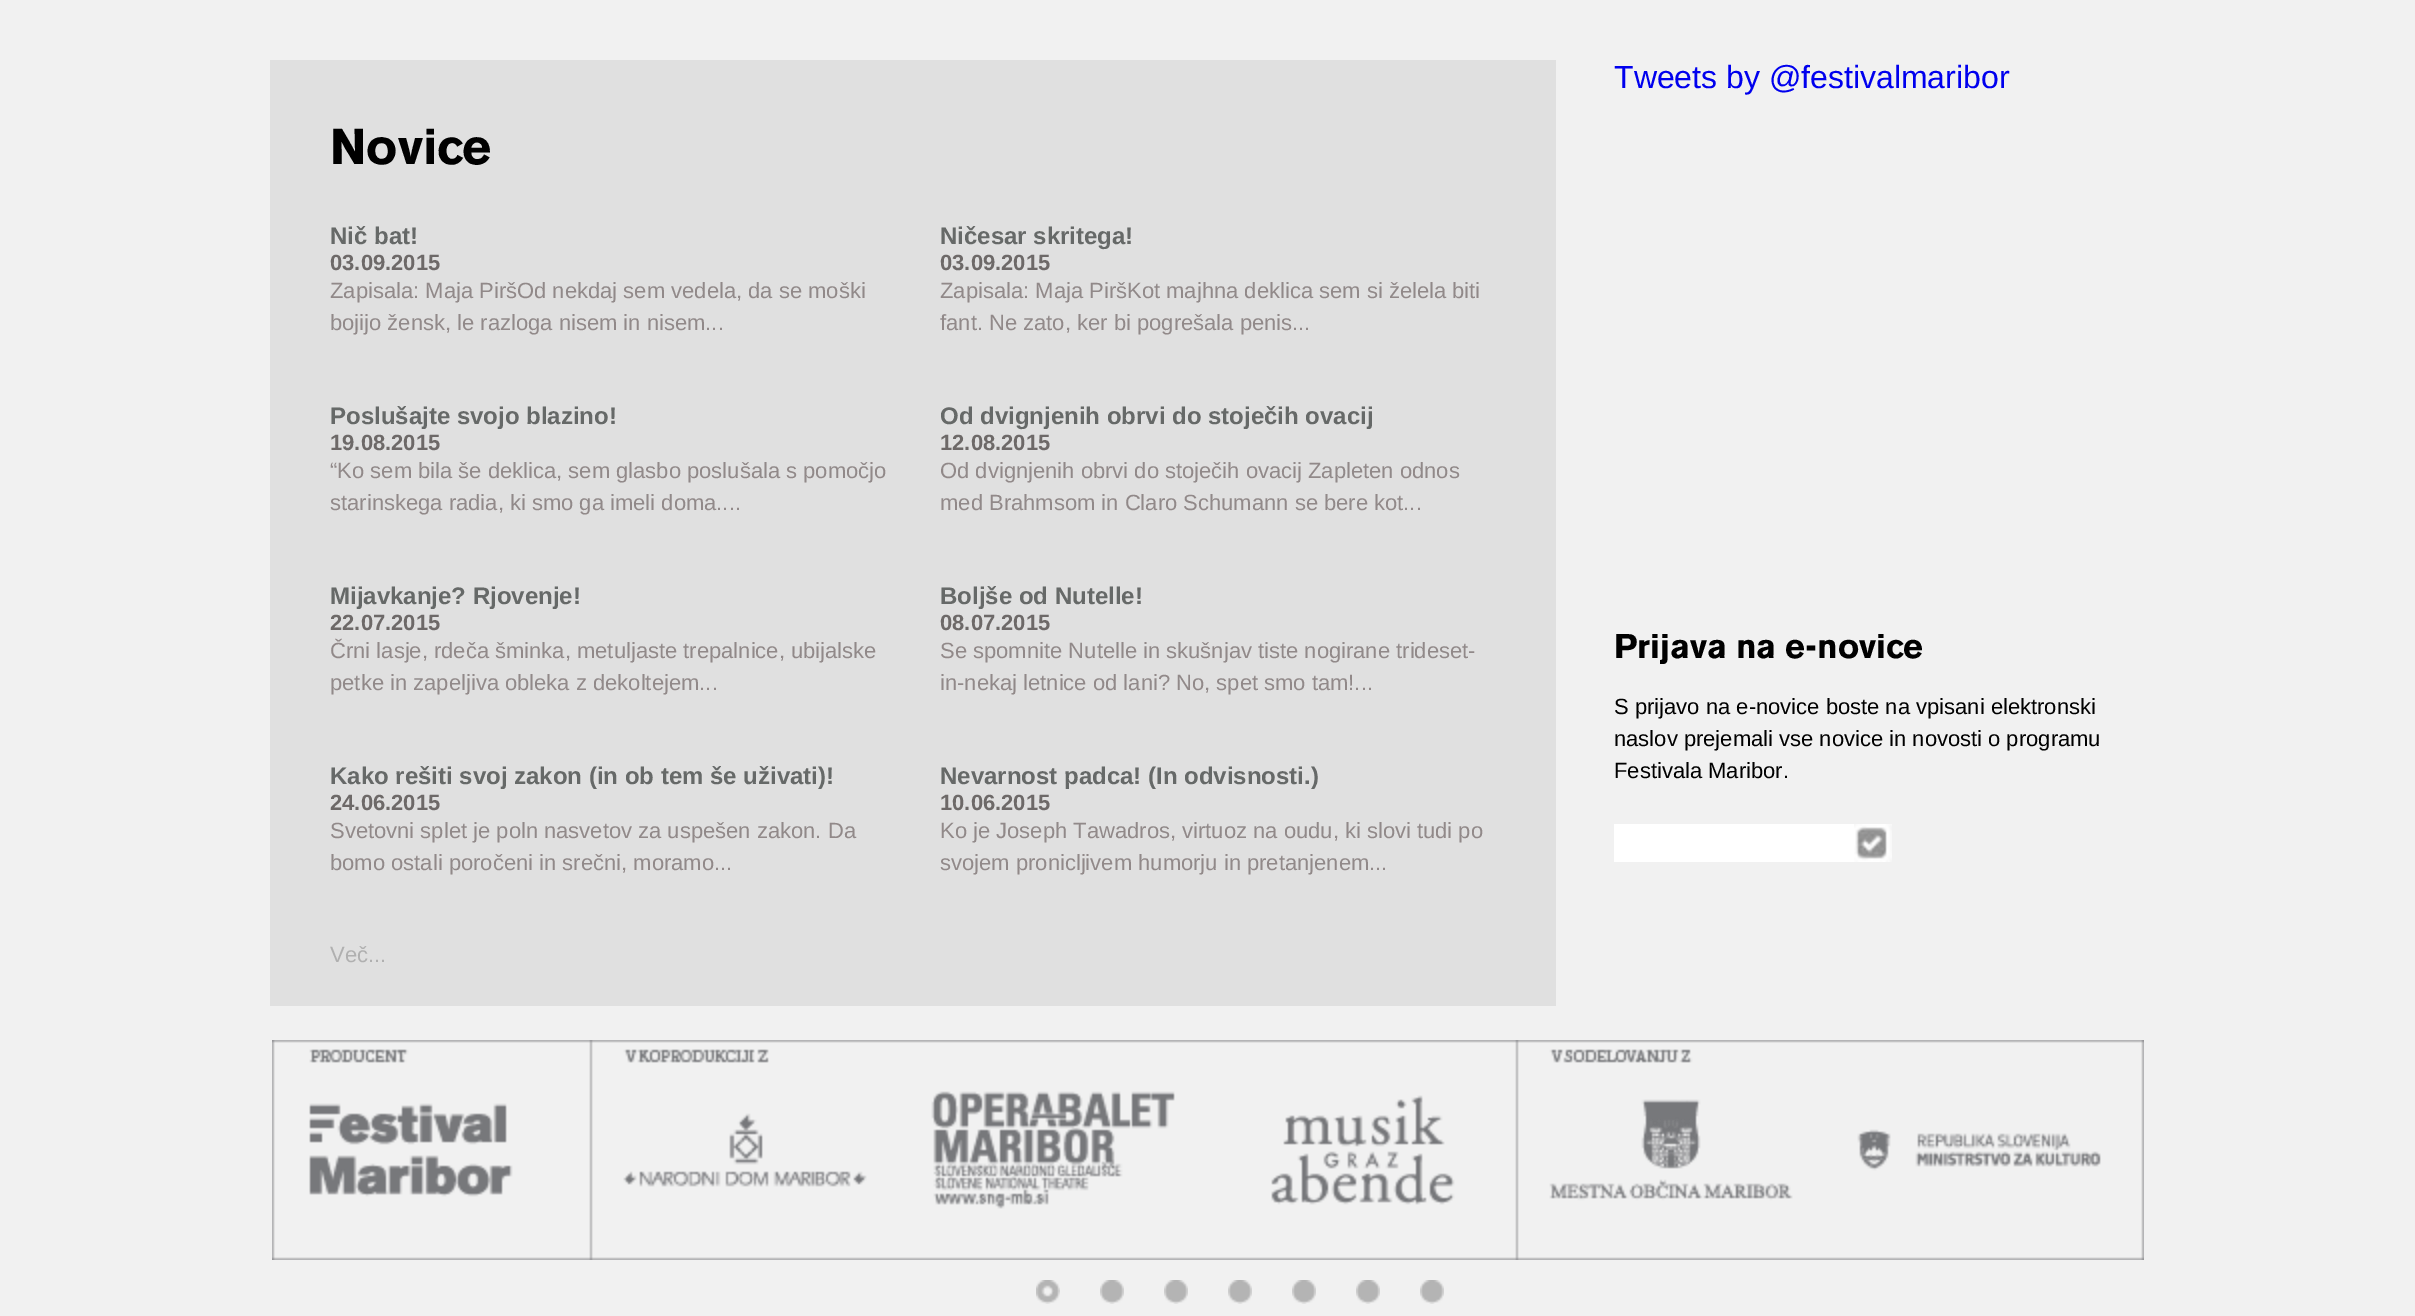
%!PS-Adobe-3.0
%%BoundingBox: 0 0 2415 1316
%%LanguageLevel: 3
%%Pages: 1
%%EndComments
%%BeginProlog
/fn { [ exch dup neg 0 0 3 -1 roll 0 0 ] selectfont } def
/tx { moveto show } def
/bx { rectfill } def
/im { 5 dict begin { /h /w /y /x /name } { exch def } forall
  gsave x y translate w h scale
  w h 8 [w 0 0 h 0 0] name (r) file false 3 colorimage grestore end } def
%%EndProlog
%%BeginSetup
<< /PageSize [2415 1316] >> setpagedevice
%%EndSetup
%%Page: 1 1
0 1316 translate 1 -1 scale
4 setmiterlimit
0.945 setgray
0 0 2415 1316 bx
0.878 setgray
270 60 1286 946 bx
/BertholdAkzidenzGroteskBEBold-Bold 50 fn
0 setgray
(Novice) 330 164 tx
/LiberationSans-Bold 24 fn
0.4 0.412 0.408 setrgbcolor
(Nič bat!) 330 244 tx
/LiberationSans-Bold 22 fn
0.427 0.412 0.408 setrgbcolor
(03.09.2015) 330 270 tx
/LiberationSans-Regular 22 fn
0.569 0.537 0.537 setrgbcolor
(Zapisala: Maja PiršOd nekdaj sem vedela, da se moški) 330 298 tx
(bojijo žensk, le razloga nisem in nisem...) 330 330 tx
/LiberationSans-Bold 24 fn
0.4 0.412 0.408 setrgbcolor
(Ničesar skritega!) 940 244 tx
/LiberationSans-Bold 22 fn
0.427 0.412 0.408 setrgbcolor
(03.09.2015) 940 270 tx
/LiberationSans-Regular 22 fn
0.569 0.537 0.537 setrgbcolor
(Zapisala: Maja PiršKot majhna deklica sem si želela biti) 940 298 tx
(fant. Ne zato, ker bi pogrešala penis...) 940 330 tx
/LiberationSans-Bold 24 fn
0.4 0.412 0.408 setrgbcolor
(Poslušajte svojo blazino!) 330 424 tx
/LiberationSans-Bold 22 fn
0.427 0.412 0.408 setrgbcolor
(19.08.2015) 330 450 tx
/LiberationSans-Regular 22 fn
0.569 0.537 0.537 setrgbcolor
(“Ko sem bila še deklica, sem glasbo poslušala s pomočjo) 330 478 tx
(starinskega radia, ki smo ga imeli doma....) 330 510 tx
/LiberationSans-Bold 24 fn
0.4 0.412 0.408 setrgbcolor
(Od dvignjenih obrvi do stoječih ovacij) 940 424 tx
/LiberationSans-Bold 22 fn
0.427 0.412 0.408 setrgbcolor
(12.08.2015) 940 450 tx
/LiberationSans-Regular 22 fn
0.569 0.537 0.537 setrgbcolor
(Od dvignjenih obrvi do stoječih ovacij Zapleten odnos) 940 478 tx
(med Brahmsom in Claro Schumann se bere kot...) 940 510 tx
/LiberationSans-Bold 24 fn
0.4 0.412 0.408 setrgbcolor
(Mijavkanje? Rjovenje!) 330 604 tx
/LiberationSans-Bold 22 fn
0.427 0.412 0.408 setrgbcolor
(22.07.2015) 330 630 tx
/LiberationSans-Regular 22 fn
0.569 0.537 0.537 setrgbcolor
(Črni lasje, rdeča šminka, metuljaste trepalnice, ubijalske) 330 658 tx
(petke in zapeljiva obleka z dekoltejem...) 330 690 tx
/LiberationSans-Bold 24 fn
0.4 0.412 0.408 setrgbcolor
(Boljše od Nutelle!) 940 604 tx
/LiberationSans-Bold 22 fn
0.427 0.412 0.408 setrgbcolor
(08.07.2015) 940 630 tx
/LiberationSans-Regular 22 fn
0.569 0.537 0.537 setrgbcolor
(Se spomnite Nutelle in skušnjav tiste nogirane trideset-) 940 658 tx
(in-nekaj letnice od lani? No, spet smo tam!...) 940 690 tx
/LiberationSans-Bold 24 fn
0.4 0.412 0.408 setrgbcolor
(Kako rešiti svoj zakon \(in ob tem še uživati\)!) 330 784 tx
/LiberationSans-Bold 22 fn
0.427 0.412 0.408 setrgbcolor
(24.06.2015) 330 810 tx
/LiberationSans-Regular 22 fn
0.569 0.537 0.537 setrgbcolor
(Svetovni splet je poln nasvetov za uspešen zakon. Da) 330 838 tx
(bomo ostali poročeni in srečni, moramo...) 330 870 tx
/LiberationSans-Bold 24 fn
0.4 0.412 0.408 setrgbcolor
(Nevarnost padca! \(In odvisnosti.\)) 940 784 tx
/LiberationSans-Bold 22 fn
0.427 0.412 0.408 setrgbcolor
(10.06.2015) 940 810 tx
/LiberationSans-Regular 22 fn
0.569 0.537 0.537 setrgbcolor
(Ko je Joseph Tawadros, virtuoz na oudu, ki slovi tudi po) 940 838 tx
(svojem pronicljivem humorju in pretanjenem...) 940 870 tx
0.69 setgray
(Več...) 330 962 tx
/LiberationSans-Regular 32 fn
0 0 0.933 setrgbcolor
(Tweets by @festivalmaribor) 1614 88 tx
/BertholdAkzidenzGroteskBEBold-Bold 34 fn
0 setgray
(Prijava na e-novice) 1614 658 tx
/LiberationSans-Regular 22 fn
(S prijavo na e-novice boste na vpisani elektronski) 1614 714 tx
(naslov prejemali vse novice in novosti o programu) 1614 746 tx
(Festivala Maribor.) 1614 778 tx
1 setgray
1614 824 240 38 bx
(image0.raw) 1854 824 38 38 im
(image1.raw) 272 1040 1872 220 im
(image2.raw) 1036 1280 24 24 im
(image3.raw) 1100 1280 24 24 im
(image3.raw) 1164 1280 24 24 im
(image3.raw) 1228 1280 24 24 im
(image3.raw) 1292 1280 24 24 im
(image3.raw) 1356 1280 24 24 im
(image3.raw) 1420 1280 24 24 im
showpage
%%EOF
